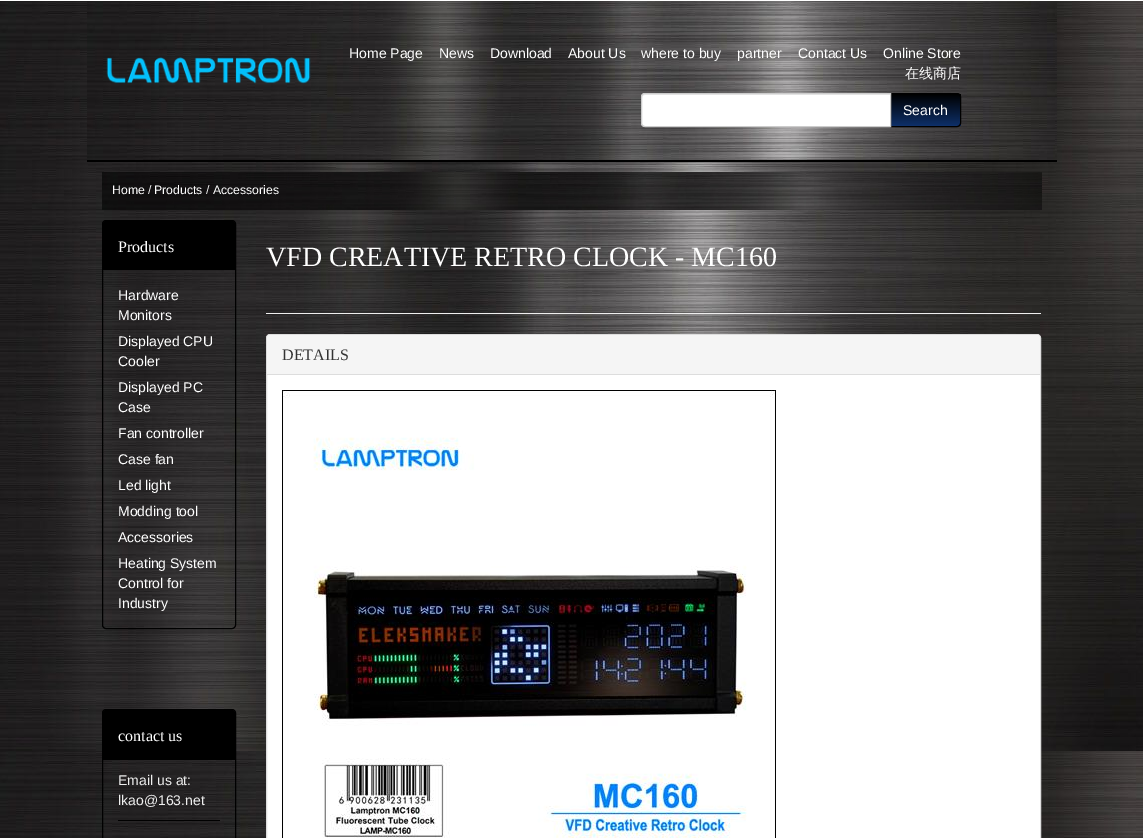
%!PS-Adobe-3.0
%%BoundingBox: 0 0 1143 838
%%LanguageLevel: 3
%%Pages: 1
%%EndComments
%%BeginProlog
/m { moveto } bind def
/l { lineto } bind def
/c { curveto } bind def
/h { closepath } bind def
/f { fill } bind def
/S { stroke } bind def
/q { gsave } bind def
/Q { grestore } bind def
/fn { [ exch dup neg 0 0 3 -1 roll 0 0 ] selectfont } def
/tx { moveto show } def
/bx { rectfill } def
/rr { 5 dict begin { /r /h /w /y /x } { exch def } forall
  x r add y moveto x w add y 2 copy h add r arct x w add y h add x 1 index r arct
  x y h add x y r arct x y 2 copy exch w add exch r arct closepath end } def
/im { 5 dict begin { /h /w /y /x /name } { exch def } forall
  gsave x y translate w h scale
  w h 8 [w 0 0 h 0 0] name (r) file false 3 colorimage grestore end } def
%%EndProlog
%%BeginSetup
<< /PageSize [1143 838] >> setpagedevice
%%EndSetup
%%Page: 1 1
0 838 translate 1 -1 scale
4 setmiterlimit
1 setgray
0 0 1143 838 bx
(image0.raw) 0 1 1143 837 im
(image1.raw) 87 1 970 159 im
0 setgray
87 160 970 2 bx
(image2.raw) 106 57 205 27 im
/LiberationSans-Regular 14 fn
1 setgray
(Home Page) 349 58 tx
(News) 439 58 tx
(Download) 490 58 tx
(About Us) 568 58 tx
(where to buy) 641 58 tx
(partner) 737 58 tx
(Contact Us) 798 58 tx
(Online Store) 883 58 tx
/WenQuanYiZenHei-Medium 14 fn
(在线商店) 905 78 tx
q
890 93 m 957 93 l 959 93 961 95 961 97 c 961 123 l 961 125 959 127 957 127 c 890 127 l h clip newpath
q 891 94 m 961 94 l 961 126 l 891 126 l h clip newpath
<< /ShadingType 2 /ColorSpace /DeviceRGB /Coords [926 94 926 126] /Extend [true true] /Function << /FunctionType 2 /Domain [0 1] /C0 [0 0 0] /C1 [0.055 0.188 0.412] /N 1 >> >> shfill Q
Q
0 setgray
890.5 93.5 m 957 93.5 l 959 93.5 960.5 95 960.5 97 c 960.5 123 l 960.5 125 959 126.5 957 126.5 c 890.5 126.5 l h S
1 setgray
645 93 m 891 93 l 891 127 l 645 127 l 643 127 641 125 641 123 c 641 97 l 641 95 643 93 645 93 c h f
0.925 setgray
645 95 m 890 95 l 890 94 l 645 94 l 643 94 642 96 642 98 c 642 96 643 95 645 95 c h f
0.8 setgray
645 93.5 m 890.5 93.5 l 890.5 126.5 l 645 126.5 l 643 126.5 641.5 125 641.5 123 c 641.5 97 l 641.5 95 643 93.5 645 93.5 c h S
/LiberationSans-Regular 14 fn
1 setgray
(Search) 903 115 tx
(image3.raw) 102 172 940 38 im
/LiberationSans-Regular 12.25 fn
(Home) 112 194 tx
0.937 setgray
(/) 148 194 tx
1 setgray
(Products) 154 194 tx
0.937 setgray
(/) 206 194 tx
1 setgray
(Accessories) 213 194 tx
0 setgray
102.5 220.5 133 408 3.5 rr S
106 221 m 232 221 l 233.5 221 235 222.5 235 224 c 235 270 l 103 270 l 103 224 l 103 222.5 104.5 221 106 221 c h f
/LiberationSerif-Regular 16 fn
1 setgray
(Products) 118 252 tx
/LiberationSans-Regular 14 fn
(Hardware) 118 300 tx
(Monitors) 118 320 tx
(Displayed CPU) 118 346 tx
(Cooler) 118 366 tx
(Displayed PC) 118 392 tx
(Case) 118 412 tx
(Fan controller) 118 438 tx
(Case fan) 118 464 tx
(Led light) 118 490 tx
(Modding tool) 118 516 tx
(Accessories) 118 542 tx
(Heating System) 118 568 tx
(Control for) 118 588 tx
(Industry) 118 608 tx
0 setgray
102.5 709.5 133 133 3.5 rr S
106 710 m 232 710 l 233.5 710 235 711.5 235 713 c 235 760 l 103 760 l 103 713 l 103 711.5 104.5 710 106 710 c h f
/LiberationSerif-Regular 16 fn
1 setgray
(contact us) 118 741 tx
0 setgray
118 820 102 1 bx
/LiberationSans-Regular 14 fn
0.937 setgray
(Email us at:) 118 785 tx
(lkao@163.net) 118 805 tx
/LiberationSerif-Regular 28 fn
1 setgray
(VFD CREATIVE RETRO CLOCK - MC160) 266 266 tx
0.933 setgray
266 313 775 1 bx
1 setgray
266.5 334.5 774 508 3.5 rr q f Q
0.867 setgray
S
0.961 setgray
270 335 m 1037 335 l 1038.5 335 1040 336.5 1040 338 c 1040 375 l 267 375 l 267 338 l 267 336.5 268.5 335 270 335 c h f
0.867 setgray
267 374 773 1 bx
/LiberationSerif-Regular 16 fn
0.2 setgray
(DETAILS) 282 360 tx
(image4.raw) 282 390 494 448 im
showpage
%%EOF
